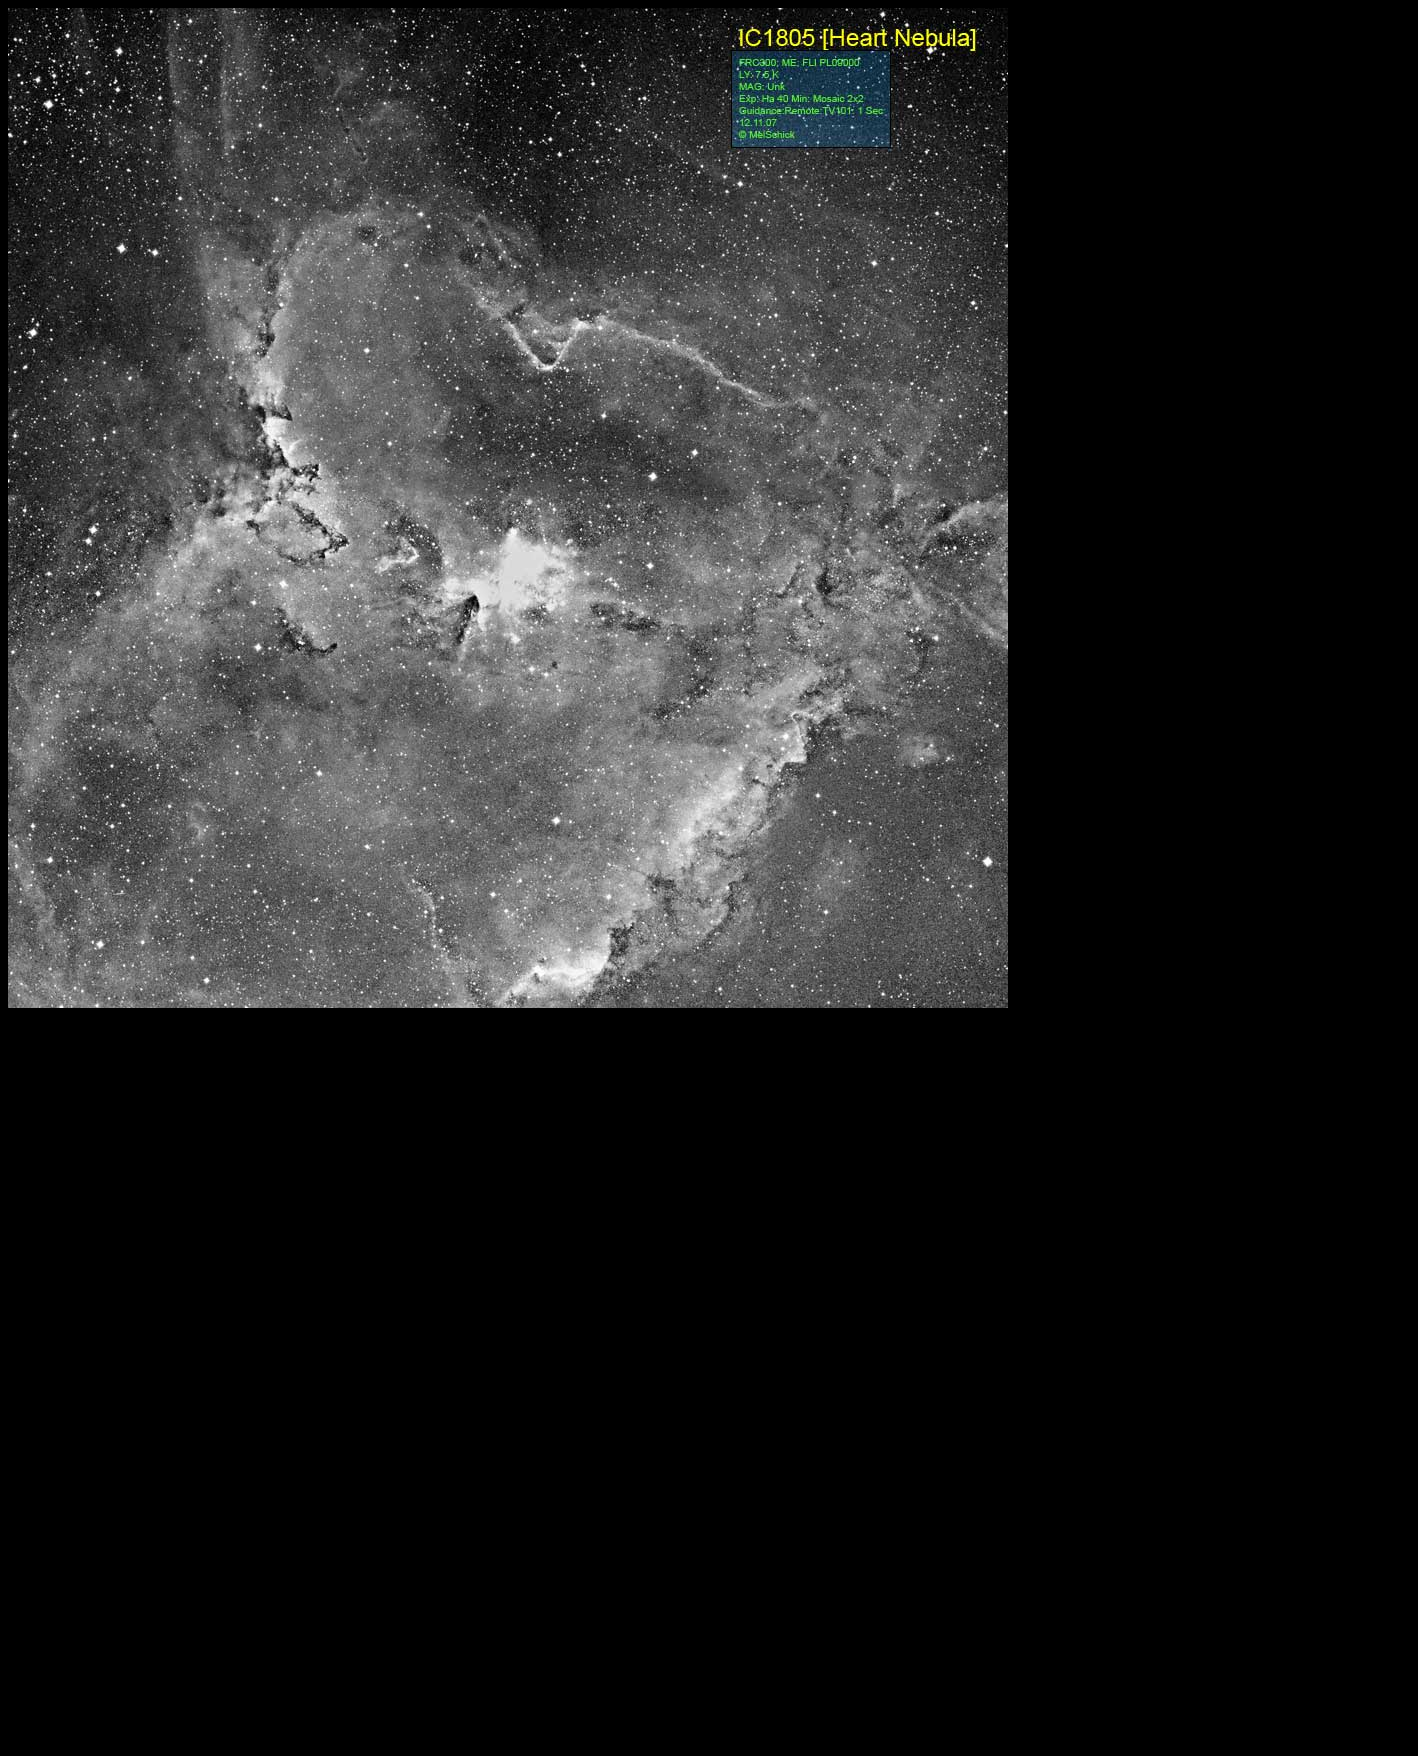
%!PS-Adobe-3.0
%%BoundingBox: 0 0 1418 1756
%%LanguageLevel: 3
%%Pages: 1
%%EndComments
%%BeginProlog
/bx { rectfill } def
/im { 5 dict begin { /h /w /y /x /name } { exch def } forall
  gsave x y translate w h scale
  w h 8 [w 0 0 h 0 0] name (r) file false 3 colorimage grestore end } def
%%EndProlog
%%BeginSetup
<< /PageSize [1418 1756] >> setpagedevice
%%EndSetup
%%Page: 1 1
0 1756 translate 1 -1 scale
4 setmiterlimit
0 setgray
0 0 1418 1756 bx
(image0.raw) 8 8 1000 1000 im
showpage
%%EOF
